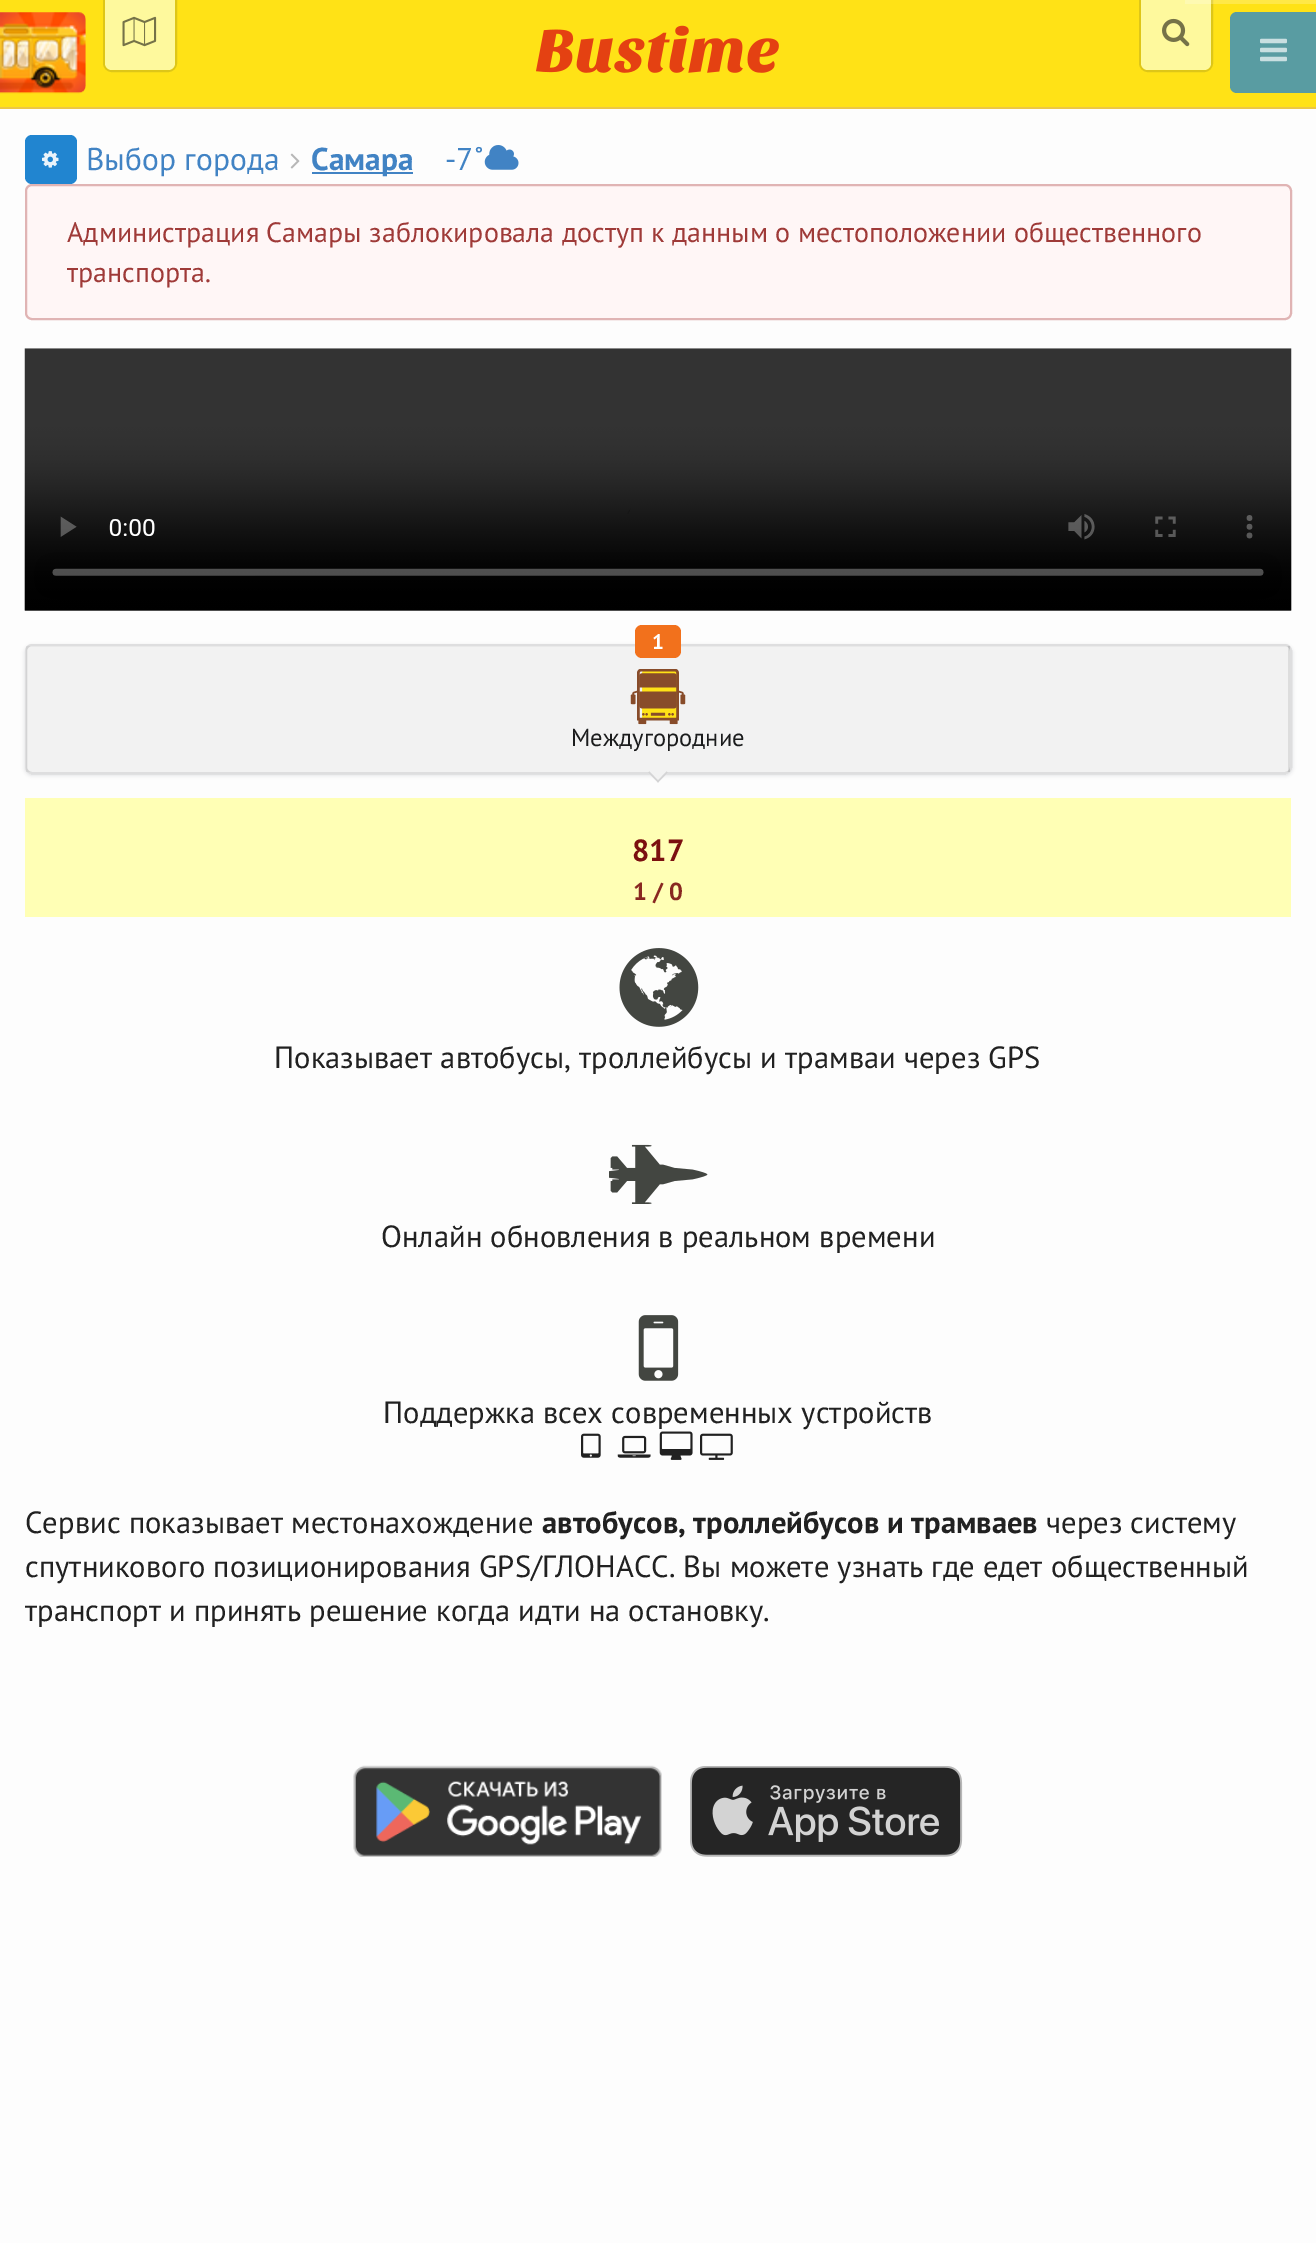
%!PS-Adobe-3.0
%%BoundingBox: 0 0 1316 2243
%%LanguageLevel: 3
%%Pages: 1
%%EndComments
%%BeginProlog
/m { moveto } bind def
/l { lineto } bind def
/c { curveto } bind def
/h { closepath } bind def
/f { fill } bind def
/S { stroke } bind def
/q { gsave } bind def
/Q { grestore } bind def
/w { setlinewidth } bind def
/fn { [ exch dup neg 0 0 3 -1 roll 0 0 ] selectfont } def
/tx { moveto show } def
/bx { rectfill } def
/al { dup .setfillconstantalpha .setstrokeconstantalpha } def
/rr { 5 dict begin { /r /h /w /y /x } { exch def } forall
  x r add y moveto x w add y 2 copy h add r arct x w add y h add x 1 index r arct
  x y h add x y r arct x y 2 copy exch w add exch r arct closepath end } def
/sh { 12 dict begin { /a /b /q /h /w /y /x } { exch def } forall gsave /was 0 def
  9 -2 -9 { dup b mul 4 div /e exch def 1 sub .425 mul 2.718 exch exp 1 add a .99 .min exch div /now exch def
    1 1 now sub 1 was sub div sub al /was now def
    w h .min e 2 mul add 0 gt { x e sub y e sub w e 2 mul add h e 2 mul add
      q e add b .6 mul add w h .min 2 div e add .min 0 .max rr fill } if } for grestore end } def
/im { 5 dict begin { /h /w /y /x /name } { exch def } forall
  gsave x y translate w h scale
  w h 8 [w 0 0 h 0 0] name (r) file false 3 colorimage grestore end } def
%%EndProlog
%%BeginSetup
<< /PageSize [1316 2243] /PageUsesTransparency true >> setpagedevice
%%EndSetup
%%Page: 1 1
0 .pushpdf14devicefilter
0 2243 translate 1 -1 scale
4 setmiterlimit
0.992 setgray
0 0 1316 2243 bx
1 0.886 0.086 setrgbcolor
0 0 1316 107 bx
0.871 0.776 0.094 setrgbcolor
2 w
104 -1 m 176 -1 l 176 63 l 176 67.5 172.5 71 168 71 c 112 71 l 107.5 71 104 67.5 104 63 c h S
0.996 0.976 0.616 setrgbcolor
105 0 m 175 0 l 175 63 l 175 67 172 70 168 70 c 112 70 l 108 70 105 67 105 63 c h f
(image0.raw) 122 16 35 31 im
0.871 0.776 0.094 setrgbcolor
1140 -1 m 1212 -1 l 1212 63 l 1212 67.5 1208.5 71 1204 71 c 1148 71 l 1143.5 71 1140 67.5 1140 63 c h S
0.996 0.976 0.616 setrgbcolor
1141 0 m 1211 0 l 1211 63 l 1211 67 1208 70 1204 70 c 1148 70 l 1144 70 1141 67 1141 63 c h f
0.21 al
1 setgray
1185 0 131 4 bx
1 al
(image1.raw) 0 12 86 82 im
0.349 0.612 0.635 setrgbcolor
1237 12 m 1316 12 l 1316 93 l 1237 93 l 1233 93 1230 90 1230 86 c 1230 19 l 1230 15 1233 12 1237 12 c h f
(image2.raw) 1260 38 27 24 im
0.925 0.78 0.271 setrgbcolor
0 107 1316 2 bx
(image3.raw) 536 25 243 48 im
(image4.raw) 1162 18 28 29 im
0.129 0.522 0.816 setrgbcolor
25 135 52 49 7 rr f
(image5.raw) 42 151 17 17 im
/PTSans-Regular 31.5 fn
0.255 0.514 0.769 setrgbcolor
(Выбор города) 86 170 tx
(image6.raw) 290 153 10 16 im
312 172 101 2 bx
/PTSans-Bold 31.5 fn
(Самара) 311 170 tx
/PTSans-Regular 31.5 fn
(-7˚) 445 170 tx
(image7.raw) 484 145 35 25 im
1 0.965 0.965 setrgbcolor
26 185 1265 134 6 rr q f Q
0.878 0.706 0.706 setrgbcolor
S
/PTSans-Regular 28 fn
0.624 0.227 0.22 setrgbcolor
(Администрация Самары заблокировала доступ к данным о местоположении общественного) 67 242 tx
(транспорта.) 67 282 tx
(image8.raw) 24 348 1268 263 im
0.133 0.141 0.149 setrgbcolor
25 646 1267 129 7 2 0.15 sh
1 setgray
25 644 1267 130 7 rr f
0.15 al
0.133 0.141 0.149 setrgbcolor
26 645 1265 128 6 rr S
0.05 al
0 setgray
26 646 1264 126 bx
1 al
0.949 0.443 0.11 setrgbcolor
635 625 46 33 7 rr f
/PTSans-Bold 21 fn
1 setgray
(1) 652 649 tx
(image9.raw) 630 669 56 56 im
0.1 al
0.133 0.141 0.149 setrgbcolor
1288 646 2 126 bx
/PTSans-Regular 24.5 fn
1 al
0.106 0.11 0.114 setrgbcolor
(Междугородние) 571 746 tx
0.949 setgray
658 762.5 m 668 772.5 l 658 782.5 l 648 772.5 l h f
0.831 0.831 0.835 setrgbcolor
666.5 771.5 m 668 772.5 l 658 782.5 l 657 781.5 l h f
649.5 771.5 m 659 781.5 l 658 782.5 l 648 772.5 l h f
1 1 0.71 setrgbcolor
25 798 1266 119 bx
/PTSans-Bold 30.6 fn
0.482 0.063 0.063 setrgbcolor
(817) 632 861 tx
/PTSans-Bold 24.5 fn
0.533 0.157 0.129 setrgbcolor
(1 / 0) 633 900 tx
(image10.raw) 619 948 80 79 im
/PTSans-Regular 30.6 fn
0.129 setgray
(Показывает автобусы, троллейбусы и трамваи через GPS) 274 1068 tx
(image11.raw) 609 1144 99 60 im
(Онлайн обновления в реальном времени) 381 1247 tx
(image12.raw) 638 1315 41 66 im
(Поддержка всех современных устройств) 383 1423 tx
(image13.raw) 581 1433 20 25 im
(image14.raw) 617 1435 34 23 im
(image15.raw) 659 1431 34 29 im
(image16.raw) 700 1433 33 27 im
(Сервис показывает местонахождение) 25 1533 tx
/PTSans-Bold 30.6 fn
(автобусов, троллейбусов и трамваев) 542 1533 tx
/PTSans-Regular 30.6 fn
(через систему) 1046 1533 tx
(спутникового позиционирования GPS/ГЛОНАСС. Вы можете узнать где едет общественный) 25 1577 tx
(транспорт и принять решение когда идти на остановку.) 25 1621 tx
(image17.raw) 353 1765 309 92 im
(image18.raw) 690 1766 273 91 im
.poppdf14devicefilter showpage
%%EOF
